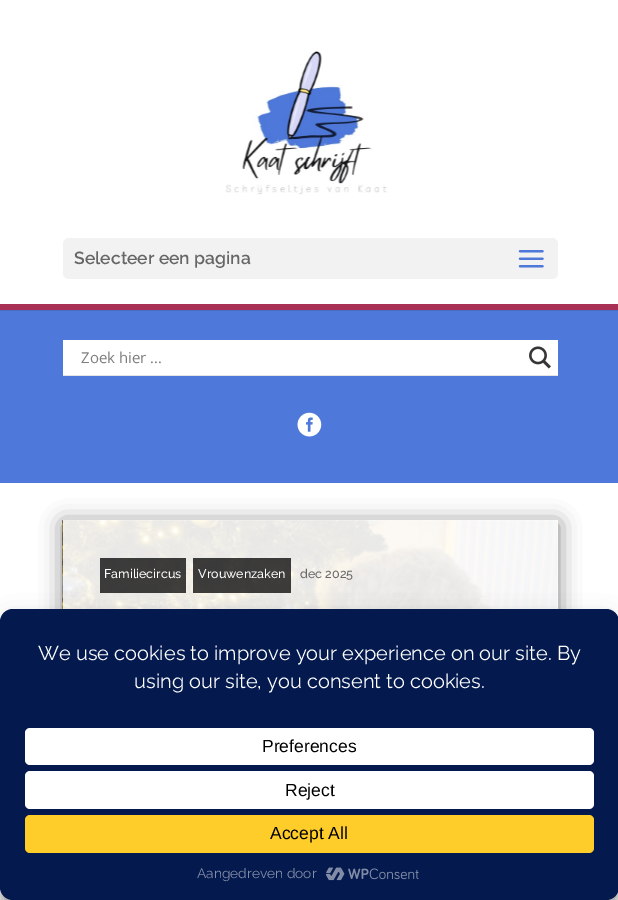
%!PS-Adobe-3.0
%%BoundingBox: 0 0 618 900
%%LanguageLevel: 3
%%Pages: 1
%%EndComments
%%BeginProlog
/m { moveto } bind def
/l { lineto } bind def
/h { closepath } bind def
/f { fill } bind def
/fn { [ exch dup neg 0 0 3 -1 roll 0 0 ] selectfont } def
/tx { moveto show } def
/bx { rectfill } def
/al { dup .setfillconstantalpha .setstrokeconstantalpha } def
/rr { 5 dict begin { /r /h /w /y /x } { exch def } forall
  x r add y moveto x w add y 2 copy h add r arct x w add y h add x 1 index r arct
  x y h add x y r arct x y 2 copy exch w add exch r arct closepath end } def
/sh { 12 dict begin { /a /b /q /h /w /y /x } { exch def } forall gsave /was 0 def
  9 -2 -9 { dup b mul 4 div /e exch def 1 sub .425 mul 2.718 exch exp 1 add a .99 .min exch div /now exch def
    1 1 now sub 1 was sub div sub al /was now def
    w h .min e 2 mul add 0 gt { x e sub y e sub w e 2 mul add h e 2 mul add
      q e add b .6 mul add w h .min 2 div e add .min 0 .max rr fill } if } for grestore end } def
/im { 5 dict begin { /h /w /y /x /name } { exch def } forall
  gsave x y translate w h scale
  w h 8 [w 0 0 h 0 0] name (r) file false 3 colorimage grestore end } def
%%EndProlog
%%BeginSetup
<< /PageSize [618 900] /PageUsesTransparency true >> setpagedevice
%%EndSetup
%%Page: 1 1
0 .pushpdf14devicefilter
0 900 translate 1 -1 scale
4 setmiterlimit
1 setgray
0 0 618 900 bx
0.275 0.424 0.769 setrgbcolor
0 310 m 0 311 l 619 311 l 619 1 l 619 310 l h f
0.659 0.188 0.329 setrgbcolor
0 304 618 6 bx
(image0.raw) 225 51 162 144 im
0.949 setgray
63 238 495 41 6 rr f
/Raleway-SemiBold 17.5 fn
0.4 setgray
(Selecteer een pagina) 74 264 tx
(image1.raw) 518 250 26 18 im
0.306 0.471 0.855 setrgbcolor
0 311 618 172 bx
0.894 setgray
63 375 m 63 376 l 558 376 l 558 341 l 558 375 l h f
1 setgray
63 340 495 35 bx
/OpenSans-Regular 15 fn
0.49 setgray
(Zoek hier ...) 81 363 tx
(image2.raw) 529 346 22 23 im
(image3.raw) 297 412 25 25 im
0 setgray
63 523 495 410 0 11 0.5 sh
0.9 al
1 setgray
63 520 495 89 bx
1 al
(image4.raw) 62 520 496 89 im
0.9 al
63 520 495 89 bx
0.75 al
0 setgray
100 558 86 35 bx
/Raleway-Medium 12.5 fn
1 al
1 setgray
(Familiecircus) 104 578 tx
0.75 al
0 setgray
193 558 98 35 bx
1 al
1 setgray
(Vrouwenzaken) 198 578 tx
0.4 setgray
(dec 2025) 300 578 tx
0 setgray
0 616 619 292 13 4 0.23 sh
0 621 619 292 13 12.5 0.19 sh
0.016 0.098 0.306 setrgbcolor
0 609 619 291 13 rr f
/Raleway-Regular 20 fn
1 setgray
(We use cookies to improve your experience on our site. By) 38 660 tx
(using our site, you consent to cookies.) 134 688 tx
25 728 569 37 5 rr f
/LiberationSans-Regular 17.5 fn
0 setgray
(Preferences) 262 752 tx
1 setgray
25 771 569 38 5 rr f
0 setgray
(Reject) 285 796 tx
1 0.804 0.165 setrgbcolor
25 815 569 38 5 rr f
0 setgray
(Accept All) 270 839 tx
/Raleway-Regular 13.75 fn
0.51 0.549 0.655 setrgbcolor
(Aangedreven door) 197 878 tx
(image5.raw) 325 867 94 14 im
.poppdf14devicefilter showpage
%%EOF
